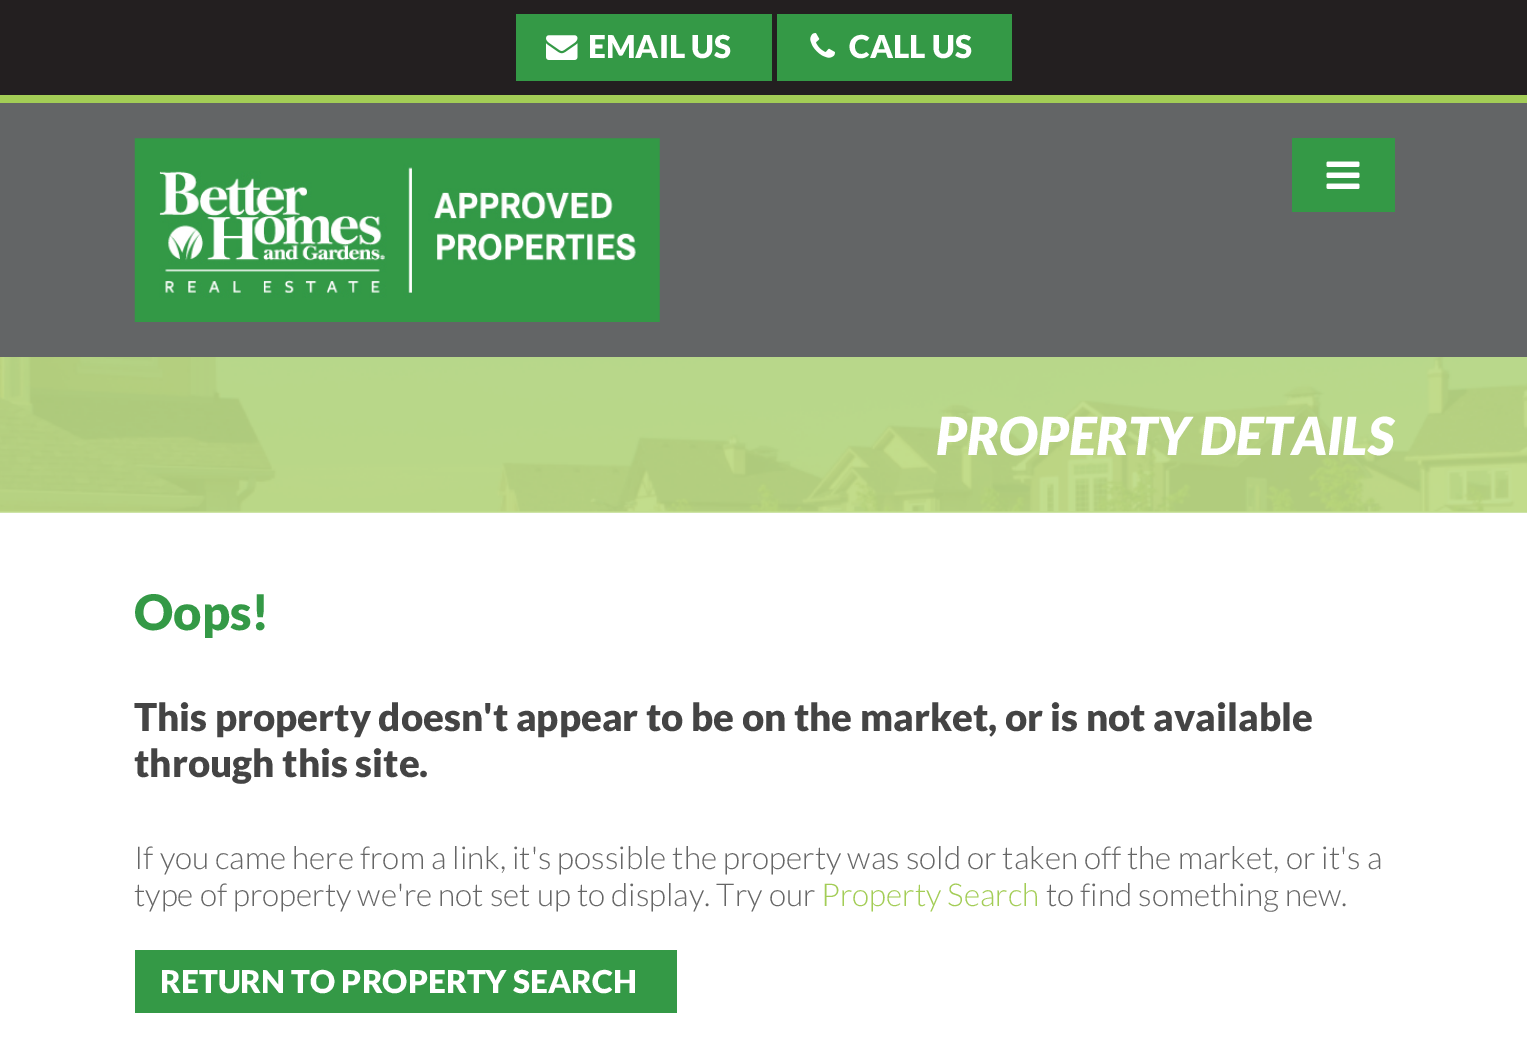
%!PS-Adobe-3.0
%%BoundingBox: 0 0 1527 1049
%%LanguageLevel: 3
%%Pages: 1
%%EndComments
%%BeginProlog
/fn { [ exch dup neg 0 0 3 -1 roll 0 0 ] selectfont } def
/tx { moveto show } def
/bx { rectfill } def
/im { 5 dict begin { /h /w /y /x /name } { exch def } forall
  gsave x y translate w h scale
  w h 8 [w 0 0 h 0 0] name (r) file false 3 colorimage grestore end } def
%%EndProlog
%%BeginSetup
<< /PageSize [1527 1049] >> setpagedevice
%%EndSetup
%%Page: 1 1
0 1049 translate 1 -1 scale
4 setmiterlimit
1 setgray
0 0 1527 1049 bx
0.137 0.122 0.125 setrgbcolor
0 0 1527 95 bx
0.639 0.804 0.337 setrgbcolor
0 95 1527 8 bx
0.204 0.6 0.275 setrgbcolor
516 14 256 67 bx
(image0.raw) 546 35 32 25 im
/Lato-Black 31.5 fn
1 setgray
(EMAIL US) 588 58 tx
0.204 0.6 0.275 setrgbcolor
777 14 235 67 bx
(image1.raw) 810 33 25 25 im
1 setgray
(CALL US) 849 58 tx
0.388 0.396 0.4 setrgbcolor
0 103 1527 254 bx
(image2.raw) 134 138 526 184 im
0.204 0.6 0.275 setrgbcolor
1292 138 103 74 bx
(image3.raw) 1326 161 34 28 im
0.949 setgray
0 511 1527 2 bx
(image4.raw) 0 357 1527 156 im
/Lato-BlackItalic 52.5 fn
1 setgray
(PROPERTY DETAILS) 936 455 tx
/Lato-Black 49 fn
0.204 0.6 0.275 setrgbcolor
(Oops!) 134 630 tx
/Lato-Black 38.5 fn
0.267 setgray
(This property doesn't appear to be on the market, or is not available) 134 731 tx
(through this site.) 134 777 tx
/Lato-Light 31.5 fn
0.4 setgray
(If you came here from a link, it's possible the property was sold or taken off the market, or it's a) 134 869 tx
(type of property we're not set up to display. Try our) 134 906 tx
0.639 0.804 0.337 setrgbcolor
(Property Search) 821 906 tx
0.4 setgray
(to find something new.) 1046 906 tx
0.204 0.6 0.275 setrgbcolor
135 950 542 63 bx
/Lato-Black 31.5 fn
1 setgray
(RETURN TO PROPERTY SEARCH) 160 993 tx
showpage
%%EOF
